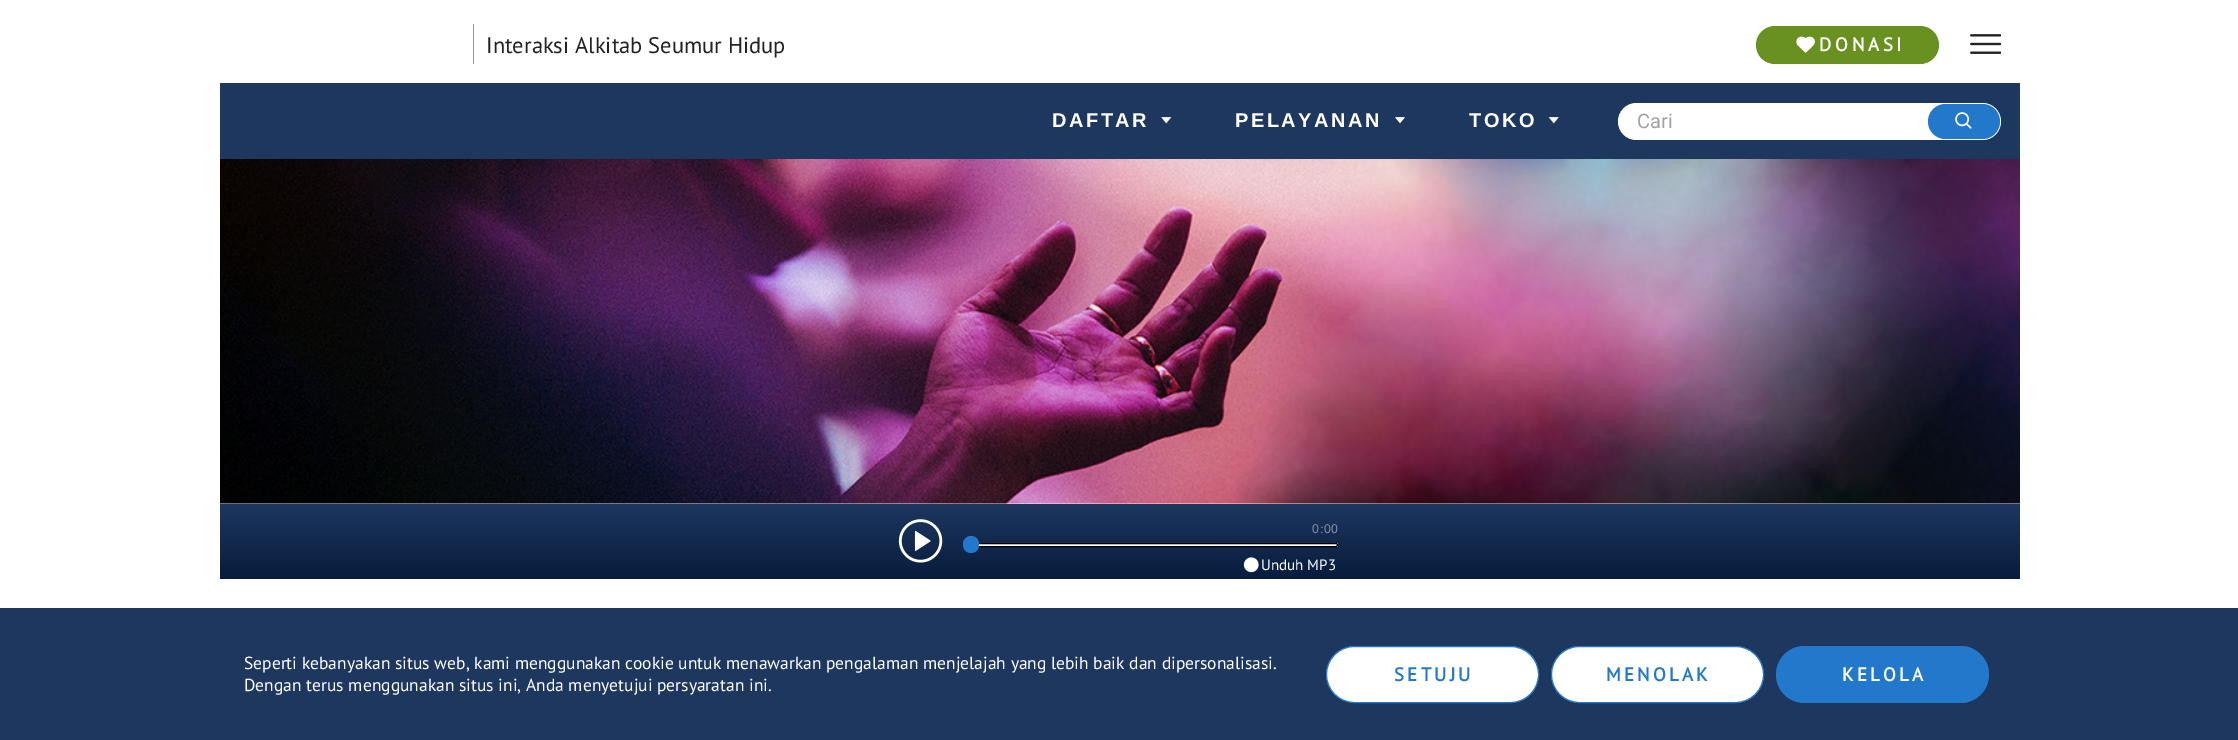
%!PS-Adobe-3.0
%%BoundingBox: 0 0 2238 740
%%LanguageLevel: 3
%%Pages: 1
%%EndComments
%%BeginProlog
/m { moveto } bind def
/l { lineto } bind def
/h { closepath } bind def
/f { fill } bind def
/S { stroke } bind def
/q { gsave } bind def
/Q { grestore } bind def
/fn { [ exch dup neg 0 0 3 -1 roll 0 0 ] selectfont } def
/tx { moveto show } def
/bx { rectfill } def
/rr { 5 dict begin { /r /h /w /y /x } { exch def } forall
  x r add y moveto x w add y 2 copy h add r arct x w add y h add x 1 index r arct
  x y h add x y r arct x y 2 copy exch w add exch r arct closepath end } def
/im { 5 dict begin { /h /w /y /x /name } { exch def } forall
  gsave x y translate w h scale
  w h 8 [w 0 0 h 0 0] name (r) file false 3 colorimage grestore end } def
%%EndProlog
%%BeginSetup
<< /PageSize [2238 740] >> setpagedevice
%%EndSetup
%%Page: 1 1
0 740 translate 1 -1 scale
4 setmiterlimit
1 setgray
0 0 2238 740 bx
0.592 setgray
473 24 1 40 bx
/PTSans-Regular 22.5 fn
0.133 setgray
(Interaksi Alkitab Seumur Hidup) 486 53 tx
0.412 0.569 0.122 setrgbcolor
1756 26 183 38 19 rr f
(image0.raw) 1796 36 19 17 im
/PTSans-Bold 18.75 fn
1 setgray
1819 51 m 3.75 0 (DONASI) ashow
(image1.raw) 1970 34 32 20 im
0.118 0.216 0.373 setrgbcolor
220 83 1800 76 bx
/LiberationSans-Bold 20 fn
1 setgray
1052 127 m 2.5 0 (DAFTAR) ashow
(image2.raw) 1161 117 11 7 im
1235 127 m 2.5 0 (PELAYANAN) ashow
(image3.raw) 1395 117 10 7 im
1469 127 m 2.5 0 (TOKO) ashow
(image4.raw) 1548 117 11 7 im
1618 103 383 37 18.5 rr f
/Roboto-Regular 20 fn
0.635 setgray
(Cari) 1637 128 tx
0.133 0.475 0.796 setrgbcolor
1928 104 72 35 17.5 rr f
(image5.raw) 1955 112 17 17 im
(image6.raw) 220 159 1800 345 im
q 220 504 m 2020 504 l 2020 579 l 220 579 l h clip newpath
<< /ShadingType 2 /ColorSpace /DeviceRGB /Coords [1120 504 1120 579] /Extend [true true] /Function << /FunctionType 2 /Domain [0 1] /C0 [0.118 0.216 0.373] /C1 [0.027 0.11 0.239] /N 1 >> >> shfill Q
(image7.raw) 898 519 45 44 im
/PTSans-Regular 12.5 fn
0.533 0.58 0.659 setrgbcolor
1312 533 m 1 0 (0:00) ashow
1 setgray
963 543 375 4 bx
0.004 setgray
963.5 543.5 374 3 1.5 rr S
0.133 0.475 0.796 setrgbcolor
963 536 16 17 8 rr f
(image8.raw) 1243 557 16 16 im
/PTSans-Regular 15 fn
1 setgray
(Unduh MP3) 1261 570 tx
0.118 0.216 0.373 setrgbcolor
0 608 2238 132 bx
/PTSans-Regular 17.5 fn
1 setgray
(Seperti kebanyakan situs web, kami menggunakan cookie untuk menawarkan pengalaman menjelajah yang lebih baik dan dipersonalisasi.) 244 669 tx
(Dengan terus menggunakan situs ini, Anda menyetujui persyaratan ini.) 244 691 tx
1326.5 646.5 212 56 28 rr q f Q
0.133 0.475 0.796 setrgbcolor
S
/PTSans-Bold 18.75 fn
1394 681 m 3.25 0 (SETUJU) ashow
1 setgray
1551.5 646.5 212 56 28 rr q f Q
0.133 0.475 0.796 setrgbcolor
S
1606 681 m 3.25 0 (MENOLAK) ashow
1776 646 213 57 28.5 rr f
1 setgray
1842 681 m 3.25 0 (KELOLA) ashow
showpage
%%EOF
